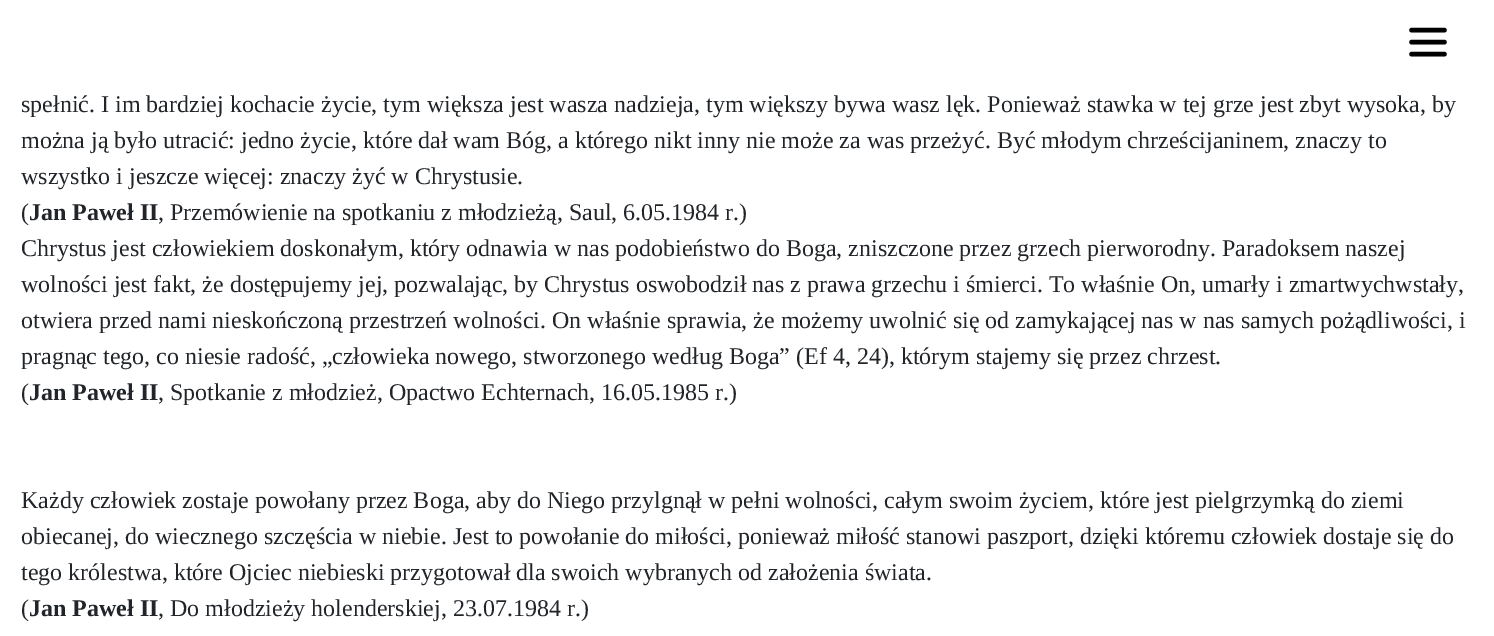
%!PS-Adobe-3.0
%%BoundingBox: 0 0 1494 636
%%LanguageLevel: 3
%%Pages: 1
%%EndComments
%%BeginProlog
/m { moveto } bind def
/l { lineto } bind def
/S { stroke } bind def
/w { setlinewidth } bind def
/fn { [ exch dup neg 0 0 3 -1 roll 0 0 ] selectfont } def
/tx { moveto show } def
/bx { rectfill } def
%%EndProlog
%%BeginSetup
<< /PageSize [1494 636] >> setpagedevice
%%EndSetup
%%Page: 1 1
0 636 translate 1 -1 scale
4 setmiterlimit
1 setgray
0 0 1494 636 bx
0 setgray
4.5 w
1 setlinecap
1411.5 30 m 1444.5 30 l 1411.5 42 m 1444.5 42 l 1411.5 54 m 1444.5 54 l S
/LiberationSerif-Regular 24 fn
0.129 0.145 0.161 setrgbcolor
(spełnić. I im bardziej kochacie życie, tym większa jest wasza nadzieja, tym większy bywa wasz lęk. Ponieważ stawka w tej grze jest zbyt wysoka, by) 21 112 tx
(można ją było utracić: jedno życie, które dał wam Bóg, a którego nikt inny nie może za was przeżyć. Być młodym chrześcijaninem, znaczy to) 21 148 tx
(wszystko i jeszcze więcej: znaczy żyć w Chrystusie.) 21 184 tx
(\() 21 220 tx
/LiberationSerif-Bold 24 fn
(Jan Paweł II) 29 220 tx
/LiberationSerif-Regular 24 fn
(, Przemówienie na spotkaniu z młodzieżą, Saul, 6.05.1984 r.\)) 158 220 tx
(Chrystus jest człowiekiem doskonałym, który odnawia w nas podobieństwo do Boga, zniszczone przez grzech pierworodny. Paradoksem naszej) 21 256 tx
(wolności jest fakt, że dostępujemy jej, pozwalając, by Chrystus oswobodził nas z prawa grzechu i śmierci. To właśnie On, umarły i zmartwychwstały,) 21 292 tx
(otwiera przed nami nieskończoną przestrzeń wolności. On właśnie sprawia, że możemy uwolnić się od zamykającej nas w nas samych pożądliwości, i) 21 328 tx
(pragnąc tego, co niesie radość, „człowieka nowego, stworzonego według Boga” \(Ef 4, 24\), którym stajemy się przez chrzest.) 21 364 tx
(\() 21 400 tx
/LiberationSerif-Bold 24 fn
(Jan Paweł II) 29 400 tx
/LiberationSerif-Regular 24 fn
(, Spotkanie z młodzież, Opactwo Echternach, 16.05.1985 r.\)) 158 400 tx
(Każdy człowiek zostaje powołany przez Boga, aby do Niego przylgnął w pełni wolności, całym swoim życiem, które jest pielgrzymką do ziemi) 21 508 tx
(obiecanej, do wiecznego szczęścia w niebie. Jest to powołanie do miłości, ponieważ miłość stanowi paszport, dzięki któremu człowiek dostaje się do) 21 544 tx
(tego królestwa, które Ojciec niebieski przygotował dla swoich wybranych od założenia świata.) 21 580 tx
(\() 21 616 tx
/LiberationSerif-Bold 24 fn
(Jan Paweł II) 29 616 tx
/LiberationSerif-Regular 24 fn
(, Do młodzieży holenderskiej, 23.07.1984 r.\)) 158 616 tx
showpage
%%EOF
